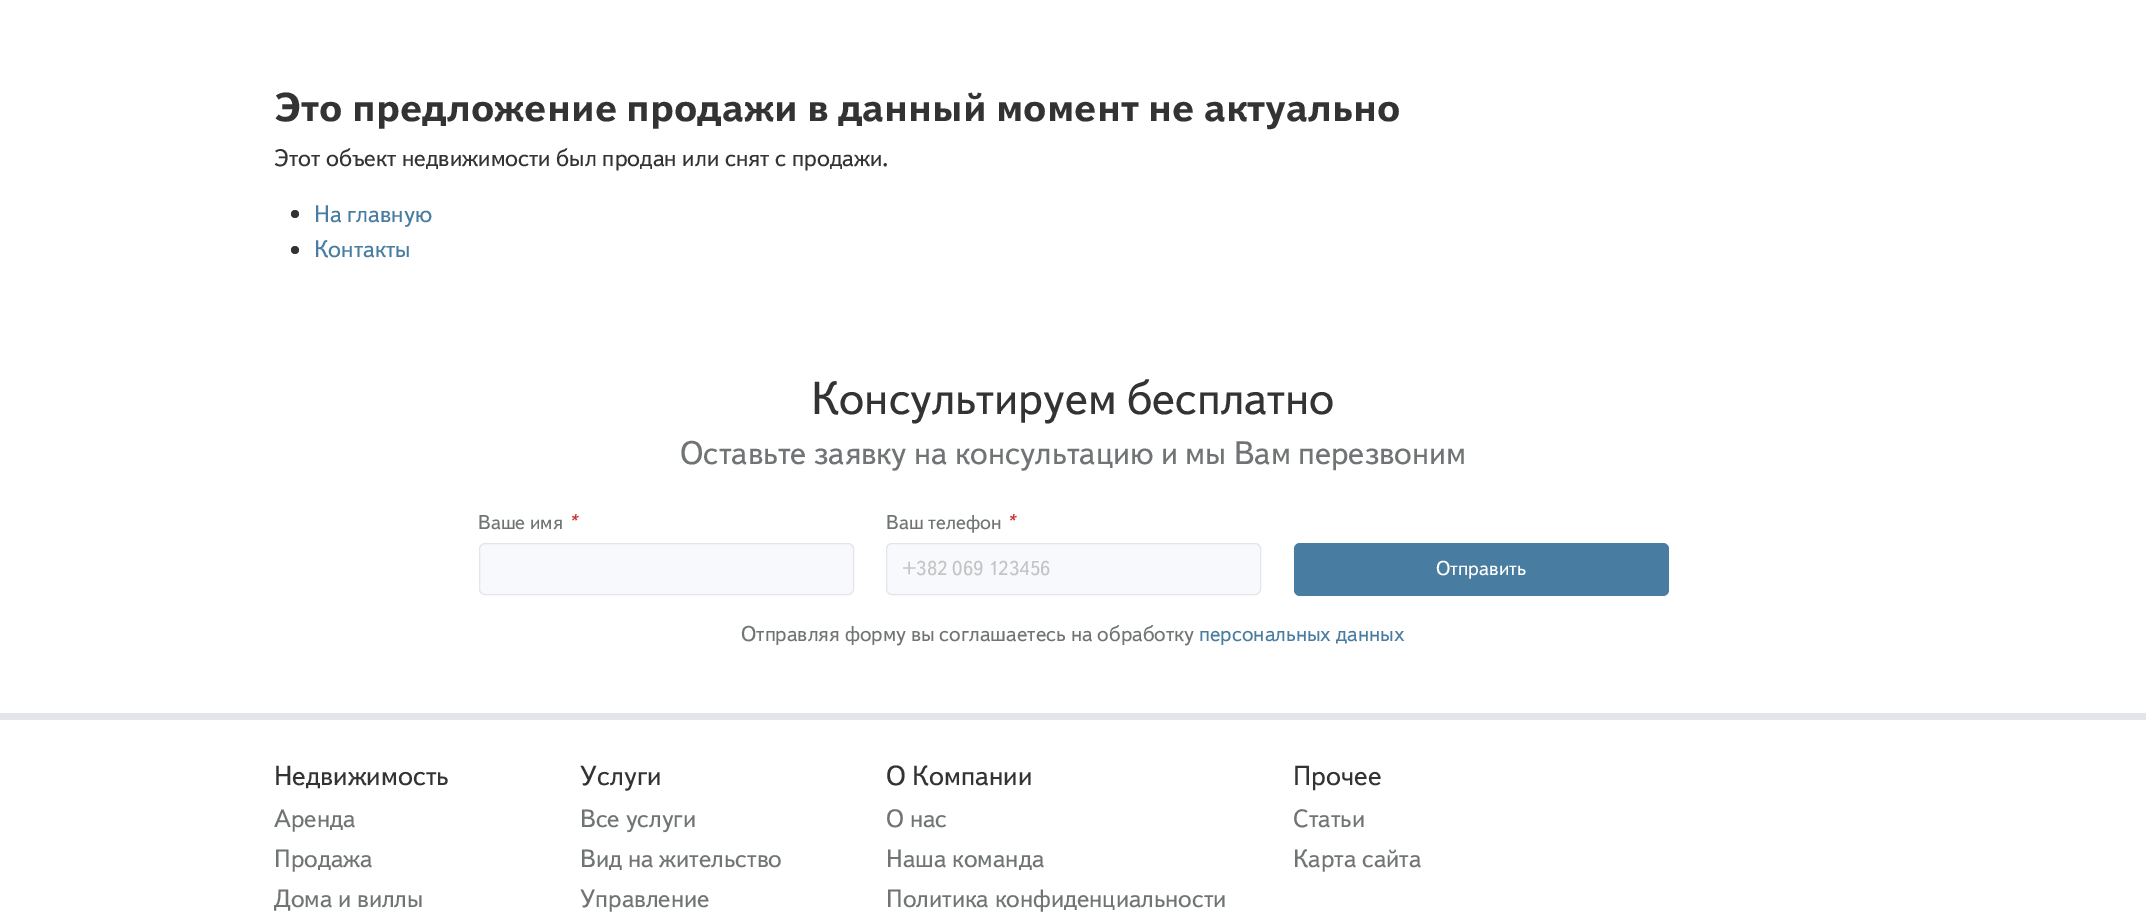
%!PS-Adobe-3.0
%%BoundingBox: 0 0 2146 922
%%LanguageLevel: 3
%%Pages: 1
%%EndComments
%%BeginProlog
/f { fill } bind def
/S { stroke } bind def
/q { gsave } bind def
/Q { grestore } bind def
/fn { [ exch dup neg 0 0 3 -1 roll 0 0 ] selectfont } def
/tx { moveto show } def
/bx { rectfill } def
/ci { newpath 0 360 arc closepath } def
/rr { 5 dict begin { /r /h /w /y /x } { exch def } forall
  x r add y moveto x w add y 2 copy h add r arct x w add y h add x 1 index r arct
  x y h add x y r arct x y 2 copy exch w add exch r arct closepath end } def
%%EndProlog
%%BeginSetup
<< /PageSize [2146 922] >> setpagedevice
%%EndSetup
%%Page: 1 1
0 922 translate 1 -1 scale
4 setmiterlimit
1 setgray
0 0 2146 922 bx
/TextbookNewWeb-Bold 40 fn
0.2 setgray
(Это предложение продажи в данный момент не актуально) 274 121 tx
/TextbookNewWeb-Regular 23.75 fn
(Этот объект недвижимости был продан или снят с продажи.) 274 166 tx
295 214 4 ci f
0.282 0.486 0.627 setrgbcolor
(На главную) 314 222 tx
0.2 setgray
295 250 4 ci f
0.282 0.486 0.627 setrgbcolor
(Контакты) 314 257 tx
/TextbookNewWeb-Regular 46.25 fn
0.2 setgray
(Консультируем бесплатно) 811 414 tx
/TextbookNewWeb-Regular 32.5 fn
0.439 0.455 0.459 setrgbcolor
(Оставьте заявку на консультацию и мы Вам перезвоним) 680 464 tx
/TextbookNewWeb-Regular 20 fn
(Ваше имя) 478 529 tx
/TextbookNewWeb-Italic 20 fn
0.784 0.204 0.204 setrgbcolor
(*) 568 529 tx
0.973 0.976 0.988 setrgbcolor
479.5 543.5 374 51 5.5 rr q f Q
0.89 0.898 0.918 setrgbcolor
S
/TextbookNewWeb-Regular 20 fn
0.439 0.455 0.459 setrgbcolor
(Ваш телефон) 886 529 tx
/TextbookNewWeb-Italic 20 fn
0.784 0.204 0.204 setrgbcolor
(*) 1006 529 tx
0.973 0.976 0.988 setrgbcolor
886.5 543.5 374 51 5.5 rr q f Q
0.89 0.898 0.918 setrgbcolor
S
/TextbookNewWeb-Regular 20 fn
0.769 setgray
(+382 069 123456) 902 575 tx
0.282 0.486 0.627 setrgbcolor
1294 543 375 53 6 rr f
1 setgray
(Отправить) 1436 575 tx
/TextbookNewWeb-Regular 21.25 fn
0.439 0.455 0.459 setrgbcolor
(Отправляя форму вы соглашаетесь на обработку) 741 641 tx
0.282 0.486 0.627 setrgbcolor
(персональных данных) 1199 641 tx
0.89 0.898 0.918 setrgbcolor
0 713 2146 7 bx
/TextbookNewWeb-Regular 27.5 fn
0.2 setgray
(Недвижимость) 274 785 tx
/TextbookNewWeb-Regular 25 fn
0.439 0.455 0.459 setrgbcolor
(Аренда) 274 827 tx
(Продажа) 274 867 tx
(Дома и виллы) 274 907 tx
/TextbookNewWeb-Regular 27.5 fn
0.2 setgray
(Услуги) 580 785 tx
/TextbookNewWeb-Regular 25 fn
0.439 0.455 0.459 setrgbcolor
(Все услуги) 580 827 tx
(Вид на жительство) 580 867 tx
(Управление) 580 907 tx
/TextbookNewWeb-Regular 27.5 fn
0.2 setgray
(О Компании) 886 785 tx
/TextbookNewWeb-Regular 25 fn
0.439 0.455 0.459 setrgbcolor
(О нас) 886 827 tx
(Наша команда) 886 867 tx
(Политика конфиденциальности) 886 907 tx
/TextbookNewWeb-Regular 27.5 fn
0.2 setgray
(Прочее) 1293 785 tx
/TextbookNewWeb-Regular 25 fn
0.439 0.455 0.459 setrgbcolor
(Статьи) 1293 827 tx
(Карта сайта) 1293 867 tx
showpage
%%EOF
